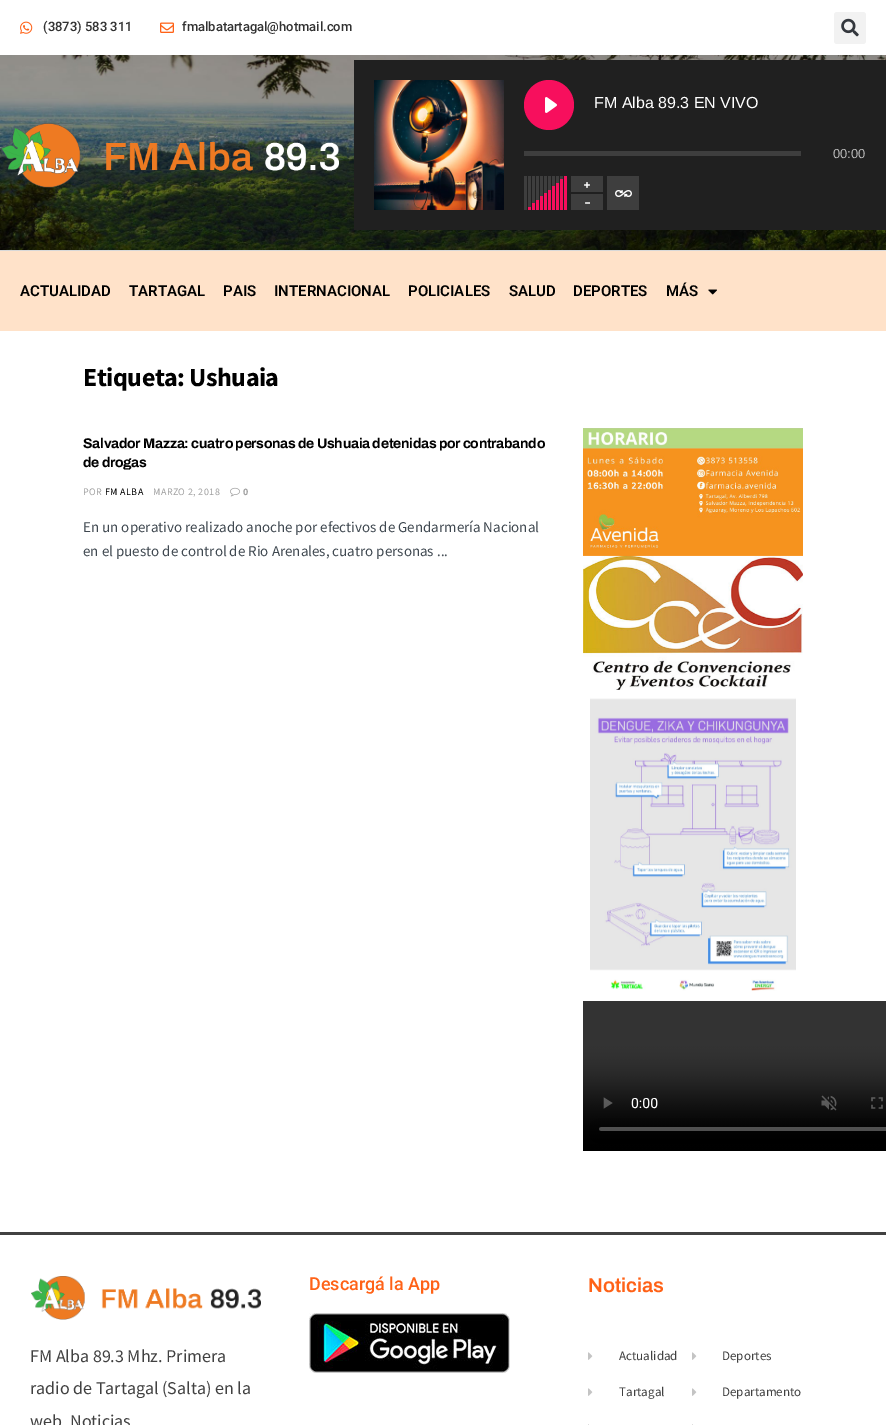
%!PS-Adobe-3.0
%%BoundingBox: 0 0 886 1425
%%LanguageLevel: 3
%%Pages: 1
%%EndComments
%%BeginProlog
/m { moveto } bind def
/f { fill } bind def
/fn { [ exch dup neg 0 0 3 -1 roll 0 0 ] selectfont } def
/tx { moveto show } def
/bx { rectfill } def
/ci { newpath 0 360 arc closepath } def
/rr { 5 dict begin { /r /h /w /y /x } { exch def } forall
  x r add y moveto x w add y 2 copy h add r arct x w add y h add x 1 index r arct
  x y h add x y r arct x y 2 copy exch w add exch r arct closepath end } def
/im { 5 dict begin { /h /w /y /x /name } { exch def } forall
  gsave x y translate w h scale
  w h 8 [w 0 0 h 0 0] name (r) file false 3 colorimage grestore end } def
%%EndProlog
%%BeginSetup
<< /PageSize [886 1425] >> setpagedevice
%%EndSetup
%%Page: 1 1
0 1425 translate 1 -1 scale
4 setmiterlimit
1 setgray
0 0 886 1425 bx
(image0.raw) 20 21 13 13 im
/Roboto-Medium 13 fn
0.192 setgray
(\(3873\) 583 311) 43 31 tx
(image1.raw) 160 22 14 11 im
(fmalbatartagal@hotmail.com) 182 31 tx
0.949 setgray
834 12 32 32 3 rr f
(image2.raw) 841 18 18 19 im
(image3.raw) 0 55 886 195 im
0.847 setgray
0 250 886 1 bx
(image4.raw) 1 123 338 65 im
0.125 setgray
354 60 532 170 bx
(image5.raw) 374 80 130 130 im
0.969 0.059 0.365 setrgbcolor
549 105 25 ci f
(image6.raw) 545 97 12 16 im
/LiberationSans-Regular 16 fn
1 setgray
(FM Alba 89.3 EN VIVO) 594 108 tx
0.243 setgray
524 151 277 5 bx
/LiberationSans-Regular 13 fn
0.737 setgray
(00:00) 833 158 tx
0.243 setgray
524 176 3 34 bx
528 176 3 34 bx
0.969 0.059 0.365 setrgbcolor
528 207 3 3 bx
0.243 setgray
532 176 3 34 bx
0.969 0.059 0.365 setrgbcolor
532 203 3 7 bx
0.243 setgray
536 176 3 24 bx
0.969 0.059 0.365 setrgbcolor
536 200 3 10 bx
0.243 setgray
540 176 3 20 bx
0.969 0.059 0.365 setrgbcolor
540 196 3 14 bx
0.243 setgray
544 176 3 17 bx
0.969 0.059 0.365 setrgbcolor
544 193 3 17 bx
0.243 setgray
548 176 3 14 bx
0.969 0.059 0.365 setrgbcolor
548 190 3 20 bx
0.243 setgray
552 176 3 10 bx
0.969 0.059 0.365 setrgbcolor
552 186 3 24 bx
0.243 setgray
556 176 3 7 bx
0.969 0.059 0.365 setrgbcolor
556 183 3 27 bx
0.243 setgray
560 176 3 3 bx
0.969 0.059 0.365 setrgbcolor
560 179 3 31 bx
564 176 3 34 bx
0.243 setgray
571 176 32 16 bx
(image7.raw) 584 182 6 6 im
571 194 32 16 bx
(image8.raw) 585 202 5 2 im
607 176 32 34 bx
(image9.raw) 615 190 17 7 im
1 0.886 0.788 setrgbcolor
0 251 886 80 bx
/Roboto-SemiBold 15 fn
0 setgray
(ACTUALIDAD) 20 296 tx
(TARTAGAL) 129 296 tx
(PAIS) 223 296 tx
(INTERNACIONAL) 274 296 tx
(POLICIALES) 408 296 tx
(SALUD) 509 296 tx
(DEPORTES) 573 296 tx
(MÁS) 666 296 tx
(image10.raw) 708 289 9 6 im
/SourceSansPro-Bold 26 fn
83 386 m -0.5 0 (Etiqueta: Ushuaia) ashow
/Archivo-Bold 14 fn
83 448 m -0.28 0 (Salvador Mazza: cuatro personas de Ushuaia detenidas por contrabando) ashow
83 467 m -0.28 0 (de drogas) ashow
/SourceSansPro-Regular 10 fn
0.627 setgray
83 495 m 0.4 0 (POR) ashow
0 setgray
105 495 m 0.4 0 (FM ALBA) ashow
0.627 setgray
153 495 m 0.4 0 (MARZO 2, 2018) ashow
(image11.raw) 230 487 10 10 im
/SourceSansPro-Bold 10 fn
243 495 m 0.4 0 (0) ashow
/SourceSansPro-Regular 15 fn
0.247 0.282 0.314 setrgbcolor
(En un operativo realizado anoche por efectivos de Gendarmería Nacional) 83 532 tx
(en el puesto de control de Rio Arenales, cuatro personas ...) 83 556 tx
(image12.raw) 583 428 220 128 im
(image13.raw) 583 555 220 135 im
(image14.raw) 590 689 206 302 im
(image15.raw) 583 1001 303 150 im
0.255 setgray
0 1232 886 3 bx
(image16.raw) 31 1276 230 44 im
/SourceSansPro-Regular 18 fn
(FM Alba 89.3 Mhz. Primera) 30 1362 tx
(radio de Tartagal \(Salta\) en la) 30 1394 tx
(web. Noticias) 30 1427 tx
/Roboto-Medium 18 fn
1 0.384 0.09 setrgbcolor
(Descargá la App) 309 1290 tx
(image17.raw) 309 1313 201 60 im
/Archivo-SemiBold 20 fn
(Noticias) 588 1292 tx
(image18.raw) 588 1352 5 8 im
/SourceSansPro-Regular 13 fn
0.255 setgray
(Actualidad) 619 1360 tx
(image18.raw) 588 1388 5 8 im
(Tartagal) 619 1396 tx
0.871 setgray
588 1424 1 1 bx
(image18.raw) 692 1352 5 8 im
0.255 setgray
(Deportes) 722 1360 tx
(image18.raw) 692 1388 5 8 im
(Departamento) 722 1396 tx
0.871 setgray
692 1424 1 1 bx
showpage
%%EOF
